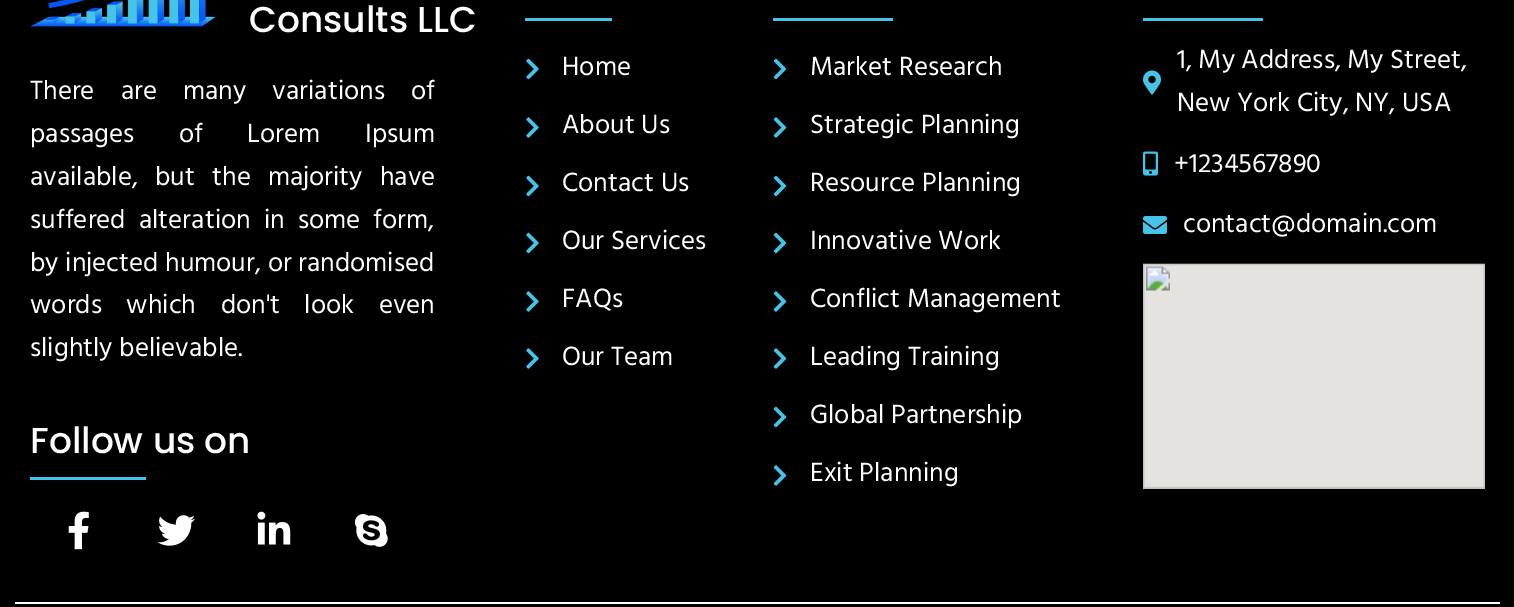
%!PS-Adobe-3.0
%%BoundingBox: 0 0 1514 607
%%LanguageLevel: 3
%%Pages: 1
%%EndComments
%%BeginProlog
/m { moveto } bind def
/fn { [ exch dup neg 0 0 3 -1 roll 0 0 ] selectfont } def
/tx { moveto show } def
/bx { rectfill } def
/im { 5 dict begin { /h /w /y /x /name } { exch def } forall
  gsave x y translate w h scale
  w h 8 [w 0 0 h 0 0] name (r) file false 3 colorimage grestore end } def
%%EndProlog
%%BeginSetup
<< /PageSize [1514 607] >> setpagedevice
%%EndSetup
%%Page: 1 1
0 607 translate 1 -1 scale
4 setmiterlimit
0 setgray
0 0 1514 607 bx
(image0.raw) 30 0 186 27 im
/Poppins-Medium 36 fn
1 setgray
(Consults LLC) 249 32 tx
/Hind-Regular 27 fn
30 99 m 19.5 0 32 (There are many variations of) widthshow
30 142 m 38 0 32 (passages of Lorem Ipsum) widthshow
30 185 m 10.5 0 32 (available, but the majority have) widthshow
30 228 m 6.5 0 32 (suffered alteration in some form,) widthshow
(by injected humour, or randomised) 30 271 tx
30 313 m 18 0 32 (words which don't look even) widthshow
(slightly believable.) 30 356 tx
/Poppins-Medium 36 fn
(Follow us on) 30 453 tx
0.271 0.769 0.914 setrgbcolor
30 477 116 3 bx
(image1.raw) 68 511 21 39 im
(image2.raw) 157 515 38 31 im
(image3.raw) 257 511 34 34 im
(image4.raw) 354 514 34 33 im
525 18 87 3 bx
(image5.raw) 526 58 13 22 im
/Hind-Regular 27 fn
1 setgray
(Home) 562 75 tx
(image6.raw) 526 117 13 21 im
(About Us) 562 133 tx
(image5.raw) 526 175 13 22 im
(Contact Us) 562 191 tx
(image5.raw) 526 232 13 22 im
(Our Services) 562 249 tx
(image6.raw) 526 291 13 21 im
(FAQs) 562 307 tx
(image6.raw) 526 348 13 21 im
(Our Team) 562 365 tx
0.271 0.769 0.914 setrgbcolor
773 18 120 3 bx
(image7.raw) 773 58 14 22 im
1 setgray
(Market Research) 810 75 tx
(image8.raw) 773 117 14 21 im
(Strategic Planning) 810 133 tx
(image7.raw) 773 175 14 22 im
(Resource Planning) 810 191 tx
(image7.raw) 773 232 14 22 im
(Innovative Work) 810 249 tx
(image8.raw) 773 291 14 21 im
(Conflict Management) 810 307 tx
(image8.raw) 773 348 14 21 im
(Leading Training) 810 365 tx
(image7.raw) 773 406 14 22 im
(Global Partnership) 810 423 tx
(image8.raw) 773 465 14 21 im
(Exit Planning) 810 481 tx
0.271 0.769 0.914 setrgbcolor
1143 18 120 3 bx
(image9.raw) 1143 70 18 25 im
1 setgray
(1, My Address, My Street,) 1177 68 tx
(New York City, NY, USA) 1177 111 tx
(image10.raw) 1143 151 15 25 im
(+1234567890) 1174 172 tx
(image11.raw) 1143 216 24 18 im
(contact@domain.com) 1183 232 tx
(image12.raw) 1143 263 342 226 im
15 602 1485 2 bx
showpage
%%EOF
